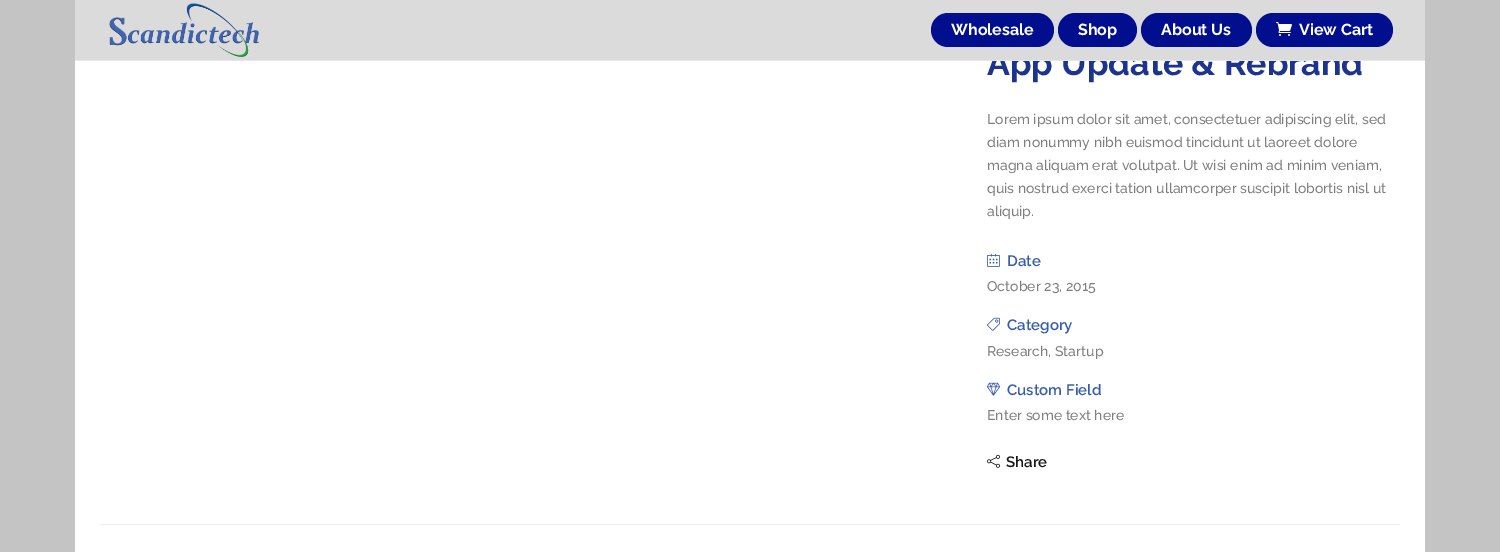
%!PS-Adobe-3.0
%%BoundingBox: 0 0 1500 552
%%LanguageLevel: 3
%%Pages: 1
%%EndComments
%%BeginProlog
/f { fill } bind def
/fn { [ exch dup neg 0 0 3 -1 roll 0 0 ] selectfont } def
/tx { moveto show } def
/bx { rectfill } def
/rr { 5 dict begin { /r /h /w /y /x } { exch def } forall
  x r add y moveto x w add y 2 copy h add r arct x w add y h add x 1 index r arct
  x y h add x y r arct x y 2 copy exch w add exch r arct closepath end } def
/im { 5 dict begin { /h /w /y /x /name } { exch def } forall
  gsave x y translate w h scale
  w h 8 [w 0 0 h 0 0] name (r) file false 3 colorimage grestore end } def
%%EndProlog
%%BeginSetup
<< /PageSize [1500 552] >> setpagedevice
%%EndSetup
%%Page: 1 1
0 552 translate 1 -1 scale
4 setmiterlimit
0.769 setgray
0 0 1500 552 bx
1 setgray
75 61 1350 491 bx
/Raleway-Bold 34 fn
0.114 0.204 0.557 setrgbcolor
(App Update & Rebrand) 987 75 tx
0.859 setgray
75 0 1350 60 bx
0.906 setgray
75 60 1350 1 bx
(image0.raw) 109 3 150 54 im
0.004 0.059 0.557 setrgbcolor
931 13 123 34 17 rr f
/Raleway-Bold 16 fn
1 setgray
(Wholesale) 951 35 tx
0.004 0.059 0.557 setrgbcolor
1058 13 79 34 17 rr f
1 setgray
(Shop) 1078 35 tx
0.004 0.059 0.557 setrgbcolor
1141 13 111 34 17 rr f
1 setgray
(About Us) 1161 35 tx
0.004 0.059 0.557 setrgbcolor
1256 13 137 34 17 rr f
(image1.raw) 1276 22 16 14 im
1 setgray
(View Cart) 1299 35 tx
/Raleway-Medium 14 fn
0.498 setgray
(Lorem ipsum dolor sit amet, consectetuer adipiscing elit, sed) 987 124 tx
(diam nonummy nibh euismod tincidunt ut laoreet dolore) 987 147 tx
(magna aliquam erat volutpat. Ut wisi enim ad minim veniam,) 987 170 tx
(quis nostrud exerci tation ullamcorper suscipit lobortis nisl ut) 987 193 tx
(aliquip.) 987 216 tx
(image2.raw) 987 253 13 14 im
/Raleway-SemiBold 15 fn
0.216 0.365 0.682 setrgbcolor
(Date) 1007 266 tx
/Raleway-Medium 14 fn
0.498 setgray
(October 23, 2015) 987 291 tx
(image3.raw) 987 317 13 14 im
/Raleway-SemiBold 15 fn
0.216 0.365 0.682 setrgbcolor
(Category) 1007 330 tx
/Raleway-Medium 14 fn
0.498 setgray
(Research, Startup) 987 356 tx
(image4.raw) 987 382 13 14 im
/Raleway-SemiBold 15 fn
0.216 0.365 0.682 setrgbcolor
(Custom Field) 1007 395 tx
/Raleway-Medium 14 fn
0.498 setgray
(Enter some text here) 987 420 tx
(image5.raw) 987 454 13 14 im
/Raleway-SemiBold 15 fn
0.086 0.09 0.114 setrgbcolor
(Share) 1006 467 tx
0.925 setgray
100 524 1300 1 bx
showpage
%%EOF
